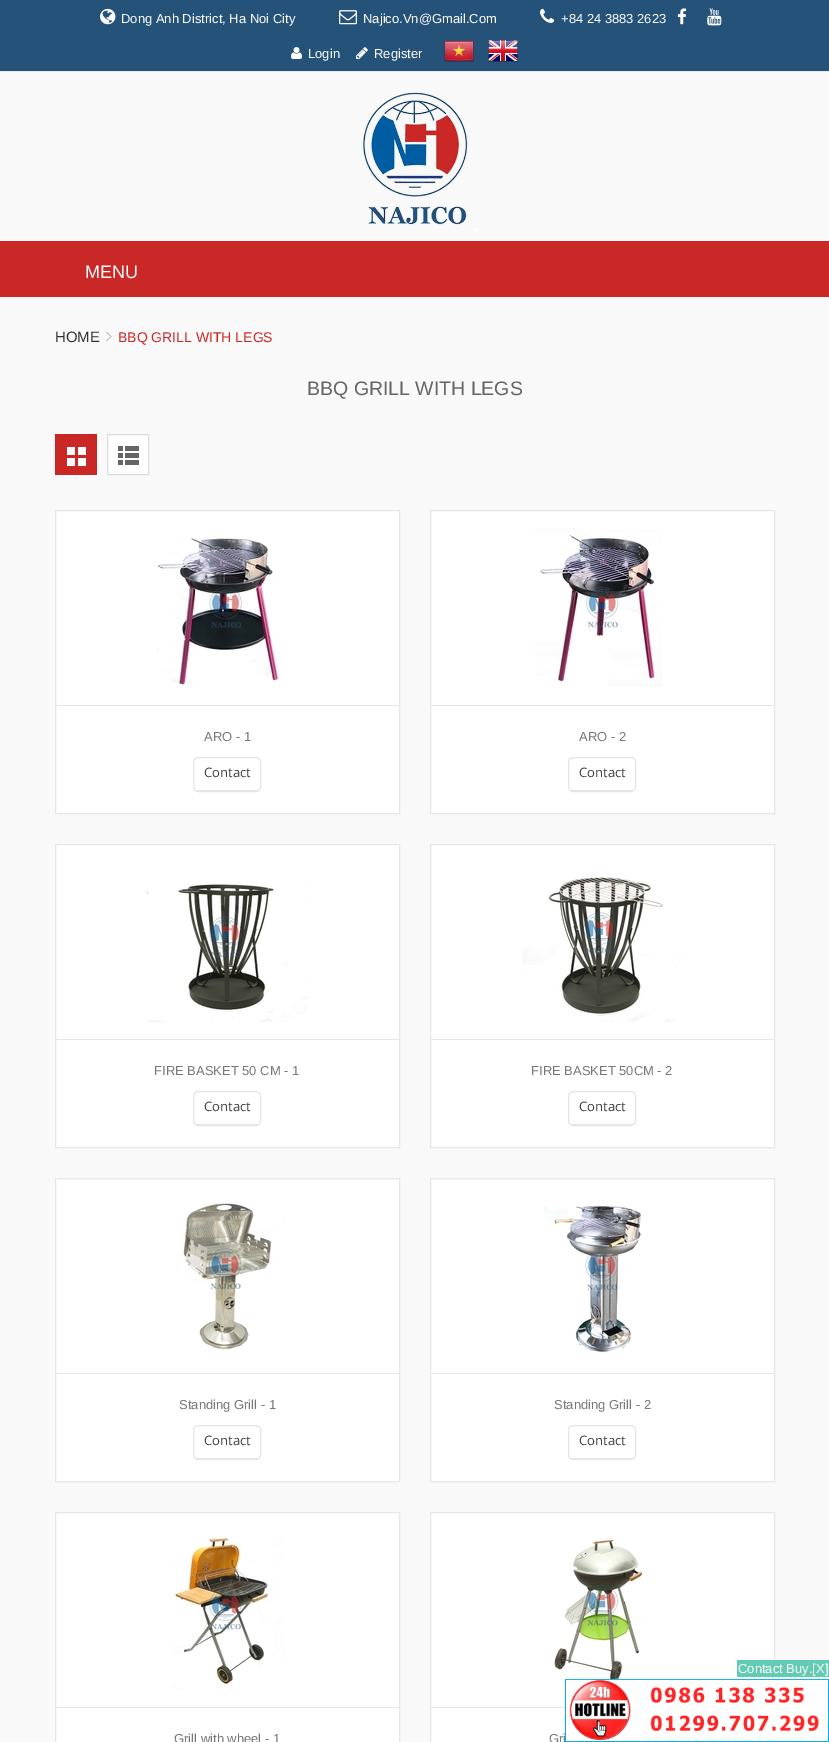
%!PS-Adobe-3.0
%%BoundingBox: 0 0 829 1742
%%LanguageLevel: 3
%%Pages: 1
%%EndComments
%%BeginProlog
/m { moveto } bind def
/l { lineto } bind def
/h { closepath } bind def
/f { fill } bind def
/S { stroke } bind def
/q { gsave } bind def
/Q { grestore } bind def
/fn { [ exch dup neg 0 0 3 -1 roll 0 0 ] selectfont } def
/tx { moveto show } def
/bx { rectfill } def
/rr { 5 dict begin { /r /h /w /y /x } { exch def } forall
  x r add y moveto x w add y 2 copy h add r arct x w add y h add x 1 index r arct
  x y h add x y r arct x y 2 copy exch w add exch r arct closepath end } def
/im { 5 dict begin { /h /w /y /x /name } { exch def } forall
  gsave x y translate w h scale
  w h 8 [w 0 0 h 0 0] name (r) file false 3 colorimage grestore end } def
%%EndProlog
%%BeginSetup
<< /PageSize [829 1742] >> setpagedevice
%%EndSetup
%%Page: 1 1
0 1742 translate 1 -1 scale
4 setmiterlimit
0.976 setgray
0 0 829 1742 bx
0.145 0.322 0.475 setrgbcolor
0 0 829 71 bx
0.91 setgray
0 71 829 1 bx
(image0.raw) 100 8 16 17 im
/LiberationSans-Regular 13 fn
1 setgray
(Dong Anh District, Ha Noi City) 121 23 tx
(image1.raw) 339 10 18 15 im
(Najico.Vn@Gmail.Com) 363 23 tx
(image2.raw) 540 8 15 15 im
(+84 24 3883 2623) 561 23 tx
(image3.raw) 677 8 10 17 im
(image4.raw) 707 8 15 18 im
(image5.raw) 291 47 11 12 im
(Login) 308 58 tx
(image6.raw) 356 47 12 12 im
(Register) 374 58 tx
(image7.raw) 444 41 30 21 im
(image8.raw) 488 40 30 22 im
(image9.raw) 362 92 115 139 im
0.792 0.157 0.149 setrgbcolor
0 241 829 56 bx
/LiberationSans-Regular 18 fn
1 setgray
(MENU) 85 278 tx
/LiberationSans-Regular 15 fn
0.2 setgray
(HOME) 55 342 tx
(image10.raw) 106 332 6 9 im
/LiberationSans-Regular 14 fn
0.792 0.157 0.149 setrgbcolor
(BBQ GRILL WITH LEGS) 118 342 tx
/LiberationSans-Regular 19.5 fn
0.4 setgray
(BBQ GRILL WITH LEGS) 307 395 tx
0.792 0.157 0.149 setrgbcolor
55 434 42 41 bx
(image11.raw) 67 447 19 19 im
1 setgray
108 435 40 39 bx
(image12.raw) 118 446 21 19 im
0.867 setgray
107.5 434.5 41 40 rectstroke
1 setgray
55.5 510.5 m 399.5 510.5 l 399.5 813.5 l 55.5 813.5 l h q f Q
0.906 setgray
S
56 705 343 1 bx
(image13.raw) 156 538 127 147 im
/LiberationSans-Regular 13 fn
0.467 setgray
(ARO - 1) 204 741 tx
0.898 setgray
193.5 757.5 67 34 4.5 rr S
196 790 63 1 bx
/Khula-Regular 14 fn
0.247 setgray
(Contact) 204 777 tx
1 setgray
430.5 510.5 m 774.5 510.5 l 774.5 813.5 l 430.5 813.5 l h q f Q
0.906 setgray
S
431 705 343 1 bx
(image14.raw) 535 528 127 159 im
/LiberationSans-Regular 13 fn
0.467 setgray
(ARO - 2) 579 741 tx
0.898 setgray
568.5 757.5 67 34 4.5 rr S
571 790 63 1 bx
/Khula-Regular 14 fn
0.247 setgray
(Contact) 579 777 tx
1 setgray
55.5 844.5 m 399.5 844.5 l 399.5 1147.5 l 55.5 1147.5 l h q f Q
0.906 setgray
S
56 1039 343 1 bx
(image15.raw) 147 881 160 141 im
/LiberationSans-Regular 13 fn
0.467 setgray
(FIRE BASKET 50 CM - 1) 154 1075 tx
0.898 setgray
193.5 1091.5 67 34 4.5 rr S
196 1124 63 1 bx
/Khula-Regular 14 fn
0.247 setgray
(Contact) 204 1111 tx
1 setgray
430.5 844.5 m 774.5 844.5 l 774.5 1147.5 l 430.5 1147.5 l h q f Q
0.906 setgray
S
431 1039 343 1 bx
(image16.raw) 522 877 160 145 im
/LiberationSans-Regular 13 fn
0.467 setgray
(FIRE BASKET 50CM - 2) 531 1075 tx
0.898 setgray
568.5 1091.5 67 34 4.5 rr S
571 1124 63 1 bx
/Khula-Regular 14 fn
0.247 setgray
(Contact) 579 1111 tx
1 setgray
55.5 1178.5 m 399.5 1178.5 l 399.5 1481.5 l 55.5 1481.5 l h q f Q
0.906 setgray
S
56 1373 343 1 bx
(image17.raw) 176 1203 111 147 im
/LiberationSans-Regular 13 fn
0.467 setgray
(Standing Grill - 1) 179 1409 tx
0.898 setgray
193.5 1425.5 67 34 4.5 rr S
196 1458 63 1 bx
/Khula-Regular 14 fn
0.247 setgray
(Contact) 204 1445 tx
1 setgray
430.5 1178.5 m 774.5 1178.5 l 774.5 1481.5 l 430.5 1481.5 l h q f Q
0.906 setgray
S
431 1373 343 1 bx
(image18.raw) 544 1205 97 148 im
/LiberationSans-Regular 13 fn
0.467 setgray
(Standing Grill - 2) 554 1409 tx
0.898 setgray
568.5 1425.5 67 34 4.5 rr S
571 1458 63 1 bx
/Khula-Regular 14 fn
0.247 setgray
(Contact) 579 1445 tx
1 setgray
55.5 1512.5 m 399.5 1512.5 l 399.5 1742.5 l 55.5 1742.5 l h q f Q
0.906 setgray
S
56 1707 343 1 bx
(image19.raw) 172 1537 113 153 im
/LiberationSans-Regular 13 fn
0.467 setgray
(Grill with wheel - 1) 174 1743 tx
1 setgray
430.5 1512.5 m 774.5 1512.5 l 774.5 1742.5 l 430.5 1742.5 l h q f Q
0.906 setgray
S
431 1707 217 1 bx
(image20.raw) 554 1539 89 145 im
0.467 setgray
(Gri) 549 1743 tx
0.38 0.8 0.702 setrgbcolor
737 1660 92 17 bx
1 setgray
(Contact Buy.[X]) 738 1673 tx
0.004 0.682 0.941 setrgbcolor
565.5 1679.5 263 62 rectstroke
(image21.raw) 566 1679 262 62 im
showpage
%%EOF
